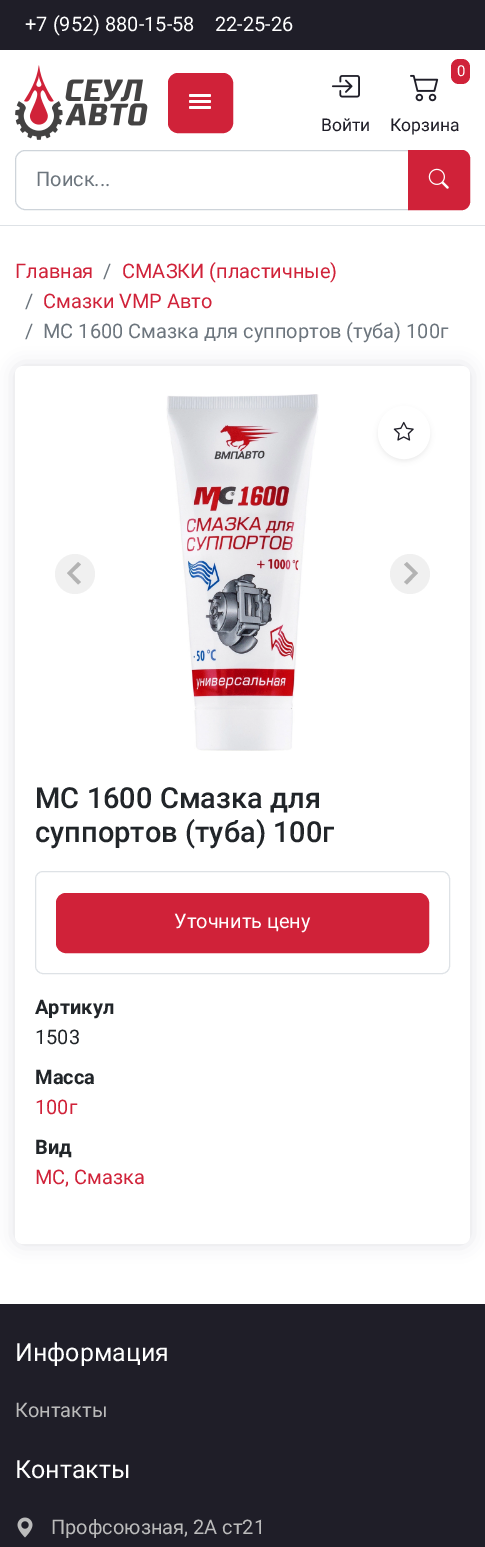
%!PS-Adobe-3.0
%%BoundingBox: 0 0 485 1547
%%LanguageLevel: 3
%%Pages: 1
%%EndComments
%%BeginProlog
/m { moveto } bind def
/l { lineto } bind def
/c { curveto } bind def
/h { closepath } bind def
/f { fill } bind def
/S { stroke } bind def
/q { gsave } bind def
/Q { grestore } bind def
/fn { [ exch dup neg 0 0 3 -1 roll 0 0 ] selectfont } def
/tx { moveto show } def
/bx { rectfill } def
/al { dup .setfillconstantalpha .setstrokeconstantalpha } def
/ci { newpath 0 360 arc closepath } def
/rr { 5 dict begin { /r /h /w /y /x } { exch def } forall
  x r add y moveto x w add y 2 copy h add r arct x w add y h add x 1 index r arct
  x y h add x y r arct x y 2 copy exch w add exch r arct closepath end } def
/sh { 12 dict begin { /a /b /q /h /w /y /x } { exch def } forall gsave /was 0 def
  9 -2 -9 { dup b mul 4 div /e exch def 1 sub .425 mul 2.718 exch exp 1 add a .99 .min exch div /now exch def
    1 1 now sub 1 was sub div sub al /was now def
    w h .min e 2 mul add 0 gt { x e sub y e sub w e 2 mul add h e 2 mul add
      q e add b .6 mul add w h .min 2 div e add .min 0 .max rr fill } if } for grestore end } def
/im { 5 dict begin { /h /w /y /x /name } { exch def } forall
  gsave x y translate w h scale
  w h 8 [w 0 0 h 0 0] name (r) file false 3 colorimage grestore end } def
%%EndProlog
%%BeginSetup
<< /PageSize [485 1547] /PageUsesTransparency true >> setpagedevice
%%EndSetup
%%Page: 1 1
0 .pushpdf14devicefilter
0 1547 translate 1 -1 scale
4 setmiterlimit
1 setgray
0 0 485 1547 bx
0.122 0.118 0.157 setrgbcolor
0 0 485 50 bx
/Roboto-Regular 20 fn
1 setgray
(+7 \(952\) 880-15-58) 25 31 tx
(22-25-26) 215 31 tx
0.871 0.886 0.902 setrgbcolor
0 225 485 1 bx
(image0.raw) 15 65 133 75 im
0.816 0.133 0.224 setrgbcolor
168.5 73.5 64 59 9.5 rr q f Q
S
1 setgray
189 94 22 3 1.5 rr f
189 100 22 3 1.5 rr f
189 106 22 3 1.5 rr f
(image1.raw) 331 75 29 23 im
/Roboto-Regular 17.5 fn
0.122 0.118 0.157 setrgbcolor
(Войти) 321 131 tx
0.816 0.133 0.224 setrgbcolor
451 59 19 25 8 rr f
/Roboto-Regular 15 fn
1 setgray
(0) 457 76 tx
(image2.raw) 410 74 29 28 im
/Roboto-Regular 17.5 fn
0.122 0.118 0.157 setrgbcolor
(Корзина) 390 131 tx
0.808 0.831 0.855 setrgbcolor
25 150.5 m 408.5 150.5 l 408.5 209.5 l 25 209.5 l 20 209.5 15.5 205 15.5 200 c 15.5 160 l 15.5 155 20 150.5 25 150.5 c h S
/Roboto-Regular 20 fn
0.424 0.459 0.49 setrgbcolor
(Поиск...) 36 186 tx
0.816 0.133 0.224 setrgbcolor
408.5 150.5 m 462 150.5 l 466 150.5 469.5 154 469.5 158 c 469.5 202 l 469.5 206 466 209.5 462 209.5 c 408.5 209.5 l h q f Q
S
(image3.raw) 428 168 21 21 im
(Главная) 15 278 tx
0.424 0.459 0.49 setrgbcolor
(/) 103 278 tx
0.816 0.133 0.224 setrgbcolor
(СМАЗКИ \(пластичные\)) 122 278 tx
0.424 0.459 0.49 setrgbcolor
(/) 25 308 tx
0.816 0.133 0.224 setrgbcolor
(Смазки VMP Авто) 43 308 tx
0.424 0.459 0.49 setrgbcolor
(/) 25 338 tx
(МС 1600 Смазка для суппортов \(туба\) 100г) 43 338 tx
0.161 0.188 0.259 setrgbcolor
15 366 455 878 8 9 0.15 sh
1 setgray
15 366 455 878 8 rr f
(image4.raw) 166 394 153 357 im
0.941 setgray
75 574 20 ci f
0.702 setgray
78 562 m 81 564.5 l 72 573 l 81 582 l 78 584.5 l 67 573 l h f
0.941 setgray
410 574 20 ci f
0.702 setgray
407 562 m 404 564.5 l 413 573 l 404 582 l 407 584.5 l 418 573 l h f
0 setgray
378 409 52 52 26 2.5 0.07 sh
1 setgray
378.5 406.5 51 52 25.5 rr q f Q
S
(image5.raw) 393 421 21 20 im
/Roboto-Medium 29 fn
0.129 0.145 0.161 setrgbcolor
(МС 1600 Смазка для) 35 808 tx
(суппортов \(туба\) 100г) 35 842 tx
0.871 0.886 0.902 setrgbcolor
35.5 871.5 414 102 7.5 rr S
0.816 0.133 0.224 setrgbcolor
56.5 893.5 372 59 9.5 rr q f Q
S
/Roboto-Regular 20 fn
1 setgray
(Уточнить цену) 174 928 tx
/Roboto-Bold 20 fn
0.129 0.145 0.161 setrgbcolor
(Артикул) 35 1014 tx
/Roboto-Regular 20 fn
(1503) 35 1044 tx
/Roboto-Bold 20 fn
(Масса) 35 1084 tx
/Roboto-Regular 20 fn
0.816 0.133 0.224 setrgbcolor
(100г) 35 1114 tx
/Roboto-Bold 20 fn
0.129 0.145 0.161 setrgbcolor
(Вид) 35 1154 tx
/Roboto-Regular 20 fn
0.816 0.133 0.224 setrgbcolor
(МС, Смазка) 35 1184 tx
0.122 0.118 0.157 setrgbcolor
0 1304 485 243 bx
/Roboto-Regular 25 fn
1 setgray
(Информация) 15 1361 tx
/Roboto-Regular 20 fn
0.733 setgray
(Контакты) 15 1417 tx
/Roboto-Regular 25 fn
1 setgray
(Контакты) 15 1478 tx
(image6.raw) 17 1517 16 21 im
/Roboto-Regular 20 fn
0.733 setgray
(Профсоюзная, 2А ст21) 51 1534 tx
.poppdf14devicefilter showpage
%%EOF
